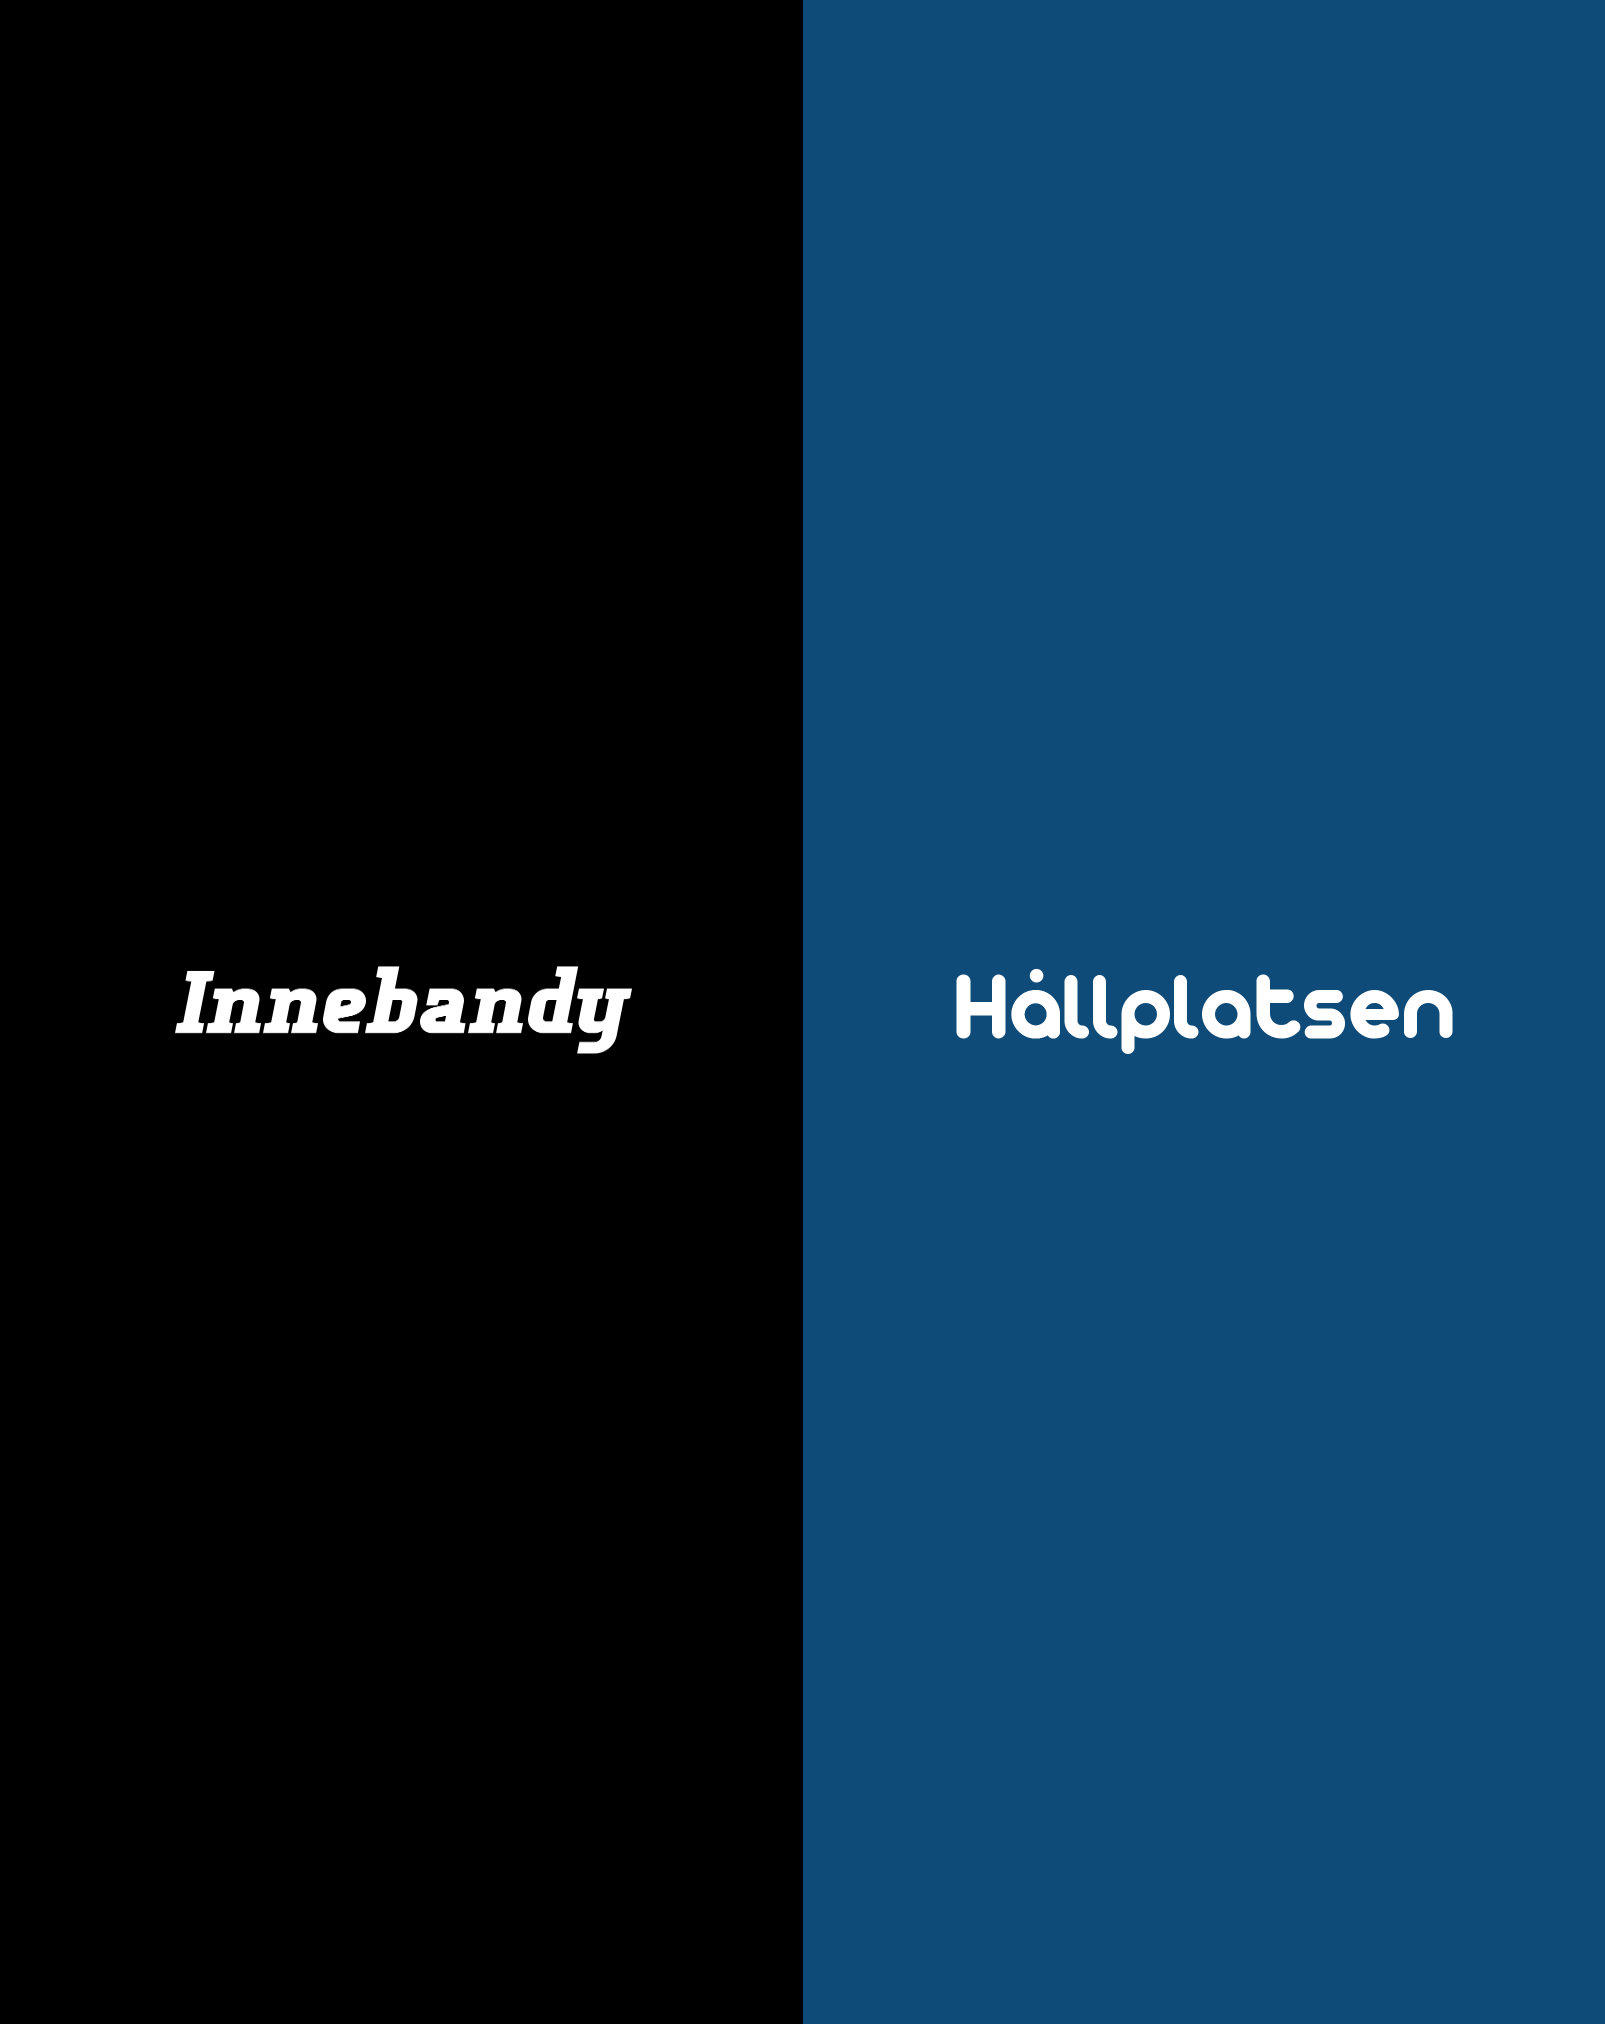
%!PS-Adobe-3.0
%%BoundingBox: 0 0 1605 2024
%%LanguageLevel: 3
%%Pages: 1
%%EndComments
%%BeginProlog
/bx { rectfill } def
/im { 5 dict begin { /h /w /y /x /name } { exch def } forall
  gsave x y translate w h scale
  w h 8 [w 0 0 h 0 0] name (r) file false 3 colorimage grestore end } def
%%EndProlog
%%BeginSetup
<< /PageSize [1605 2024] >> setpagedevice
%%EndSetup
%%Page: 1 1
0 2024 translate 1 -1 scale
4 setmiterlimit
0 setgray
0 0 1605 2024 bx
(image0.raw) 175 966 457 88 im
0.059 0.294 0.471 setrgbcolor
803 0 802 2024 bx
(image1.raw) 956 968 497 86 im
showpage
%%EOF
